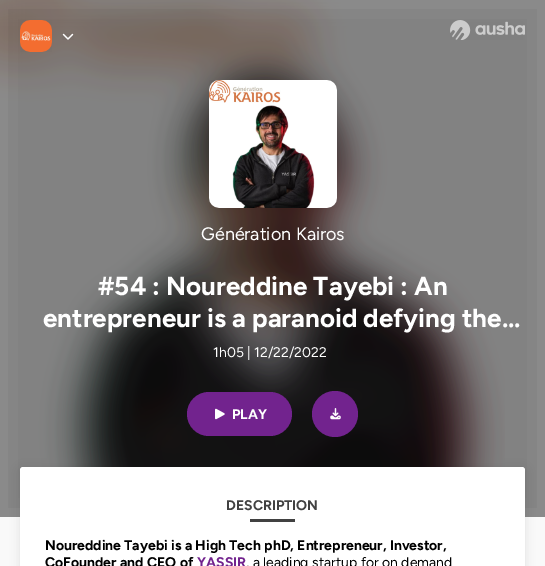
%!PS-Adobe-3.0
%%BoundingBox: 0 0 545 566
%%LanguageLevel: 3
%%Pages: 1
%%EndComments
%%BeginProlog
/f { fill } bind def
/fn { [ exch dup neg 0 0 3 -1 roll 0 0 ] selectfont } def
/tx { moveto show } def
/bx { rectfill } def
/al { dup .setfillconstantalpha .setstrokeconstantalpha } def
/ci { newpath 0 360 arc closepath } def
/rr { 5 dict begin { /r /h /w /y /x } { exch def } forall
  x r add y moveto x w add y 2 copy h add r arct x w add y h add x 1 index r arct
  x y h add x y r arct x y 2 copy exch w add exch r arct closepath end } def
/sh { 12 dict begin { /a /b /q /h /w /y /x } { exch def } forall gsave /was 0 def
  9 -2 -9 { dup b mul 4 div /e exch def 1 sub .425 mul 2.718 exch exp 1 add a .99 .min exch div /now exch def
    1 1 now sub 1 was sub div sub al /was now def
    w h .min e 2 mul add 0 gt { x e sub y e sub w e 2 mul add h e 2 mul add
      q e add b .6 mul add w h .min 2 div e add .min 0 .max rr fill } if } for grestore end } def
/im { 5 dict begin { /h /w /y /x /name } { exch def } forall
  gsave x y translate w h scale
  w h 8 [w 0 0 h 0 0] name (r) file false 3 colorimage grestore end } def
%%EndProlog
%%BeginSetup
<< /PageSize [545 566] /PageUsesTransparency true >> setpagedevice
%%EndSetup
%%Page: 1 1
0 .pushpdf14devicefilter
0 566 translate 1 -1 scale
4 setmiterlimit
1 setgray
0 0 545 566 bx
(image0.raw) 0 0 505 517 im
0 setgray
-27 -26 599 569 0 20 0.5 sh
(image1.raw) 20 20 32 32 im
(image2.raw) 62 33 12 7 im
(image3.raw) 450 20 75 20 im
(image4.raw) 209 80 128 128 im
/Figtree-Regular 18 fn
1 setgray
(Génération Kairos) 201 240 tx
/Figtree-Bold 26 fn
(#54 : Noureddine Tayebi : An) 98 295 tx
(entrepreneur is a paranoid defying the…) 43 327 tx
/Figtree-Regular 14 fn
(1h05 | 12/22/2022) 213 357 tx
0.447 0.137 0.557 setrgbcolor
187 392 105 44 22 rr f
(image5.raw) 215 408 10 12 im
/Figtree-Bold 14 fn
1 setgray
(PLAY) 232 419 tx
0.447 0.137 0.557 setrgbcolor
335 414 23 ci f
(image6.raw) 330 408 11 12 im
0.976 setgray
0 517 545 49 bx
0 setgray
20 469 505 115 3 5 0.1 sh
1 setgray
20 467 505 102 3 rr f
0.255 setgray
(DESCRIPTION) 226 510 tx
250 519 45 3 bx
0 setgray
(Noureddine Tayebi is a High Tech phD, Entrepreneur, Investor,) 45 550 tx
(CoFounder and CEO of) 45 567 tx
0.447 0.137 0.557 setrgbcolor
(YASSIR) 197 567 tx
/Figtree-Regular 14 fn
0 setgray
(, a leading startup for on demand) 246 567 tx
.poppdf14devicefilter showpage
%%EOF
